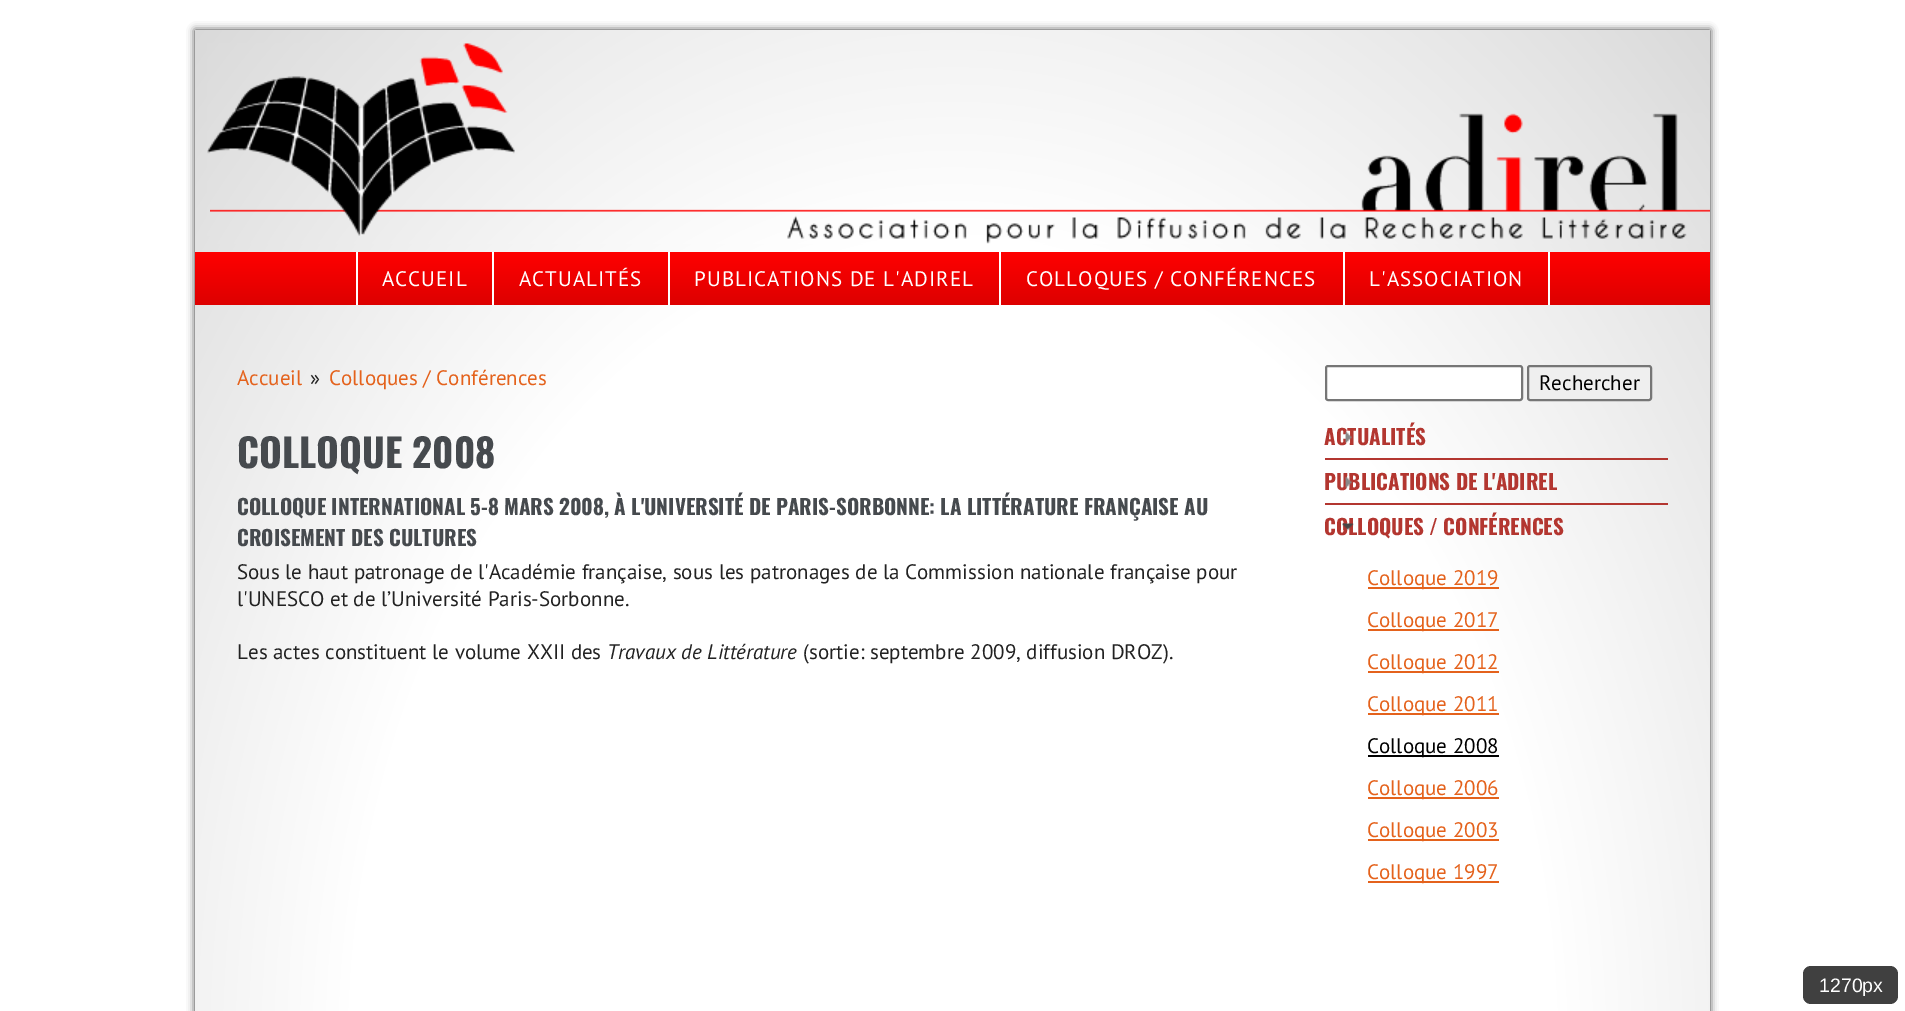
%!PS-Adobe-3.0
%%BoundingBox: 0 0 1905 1011
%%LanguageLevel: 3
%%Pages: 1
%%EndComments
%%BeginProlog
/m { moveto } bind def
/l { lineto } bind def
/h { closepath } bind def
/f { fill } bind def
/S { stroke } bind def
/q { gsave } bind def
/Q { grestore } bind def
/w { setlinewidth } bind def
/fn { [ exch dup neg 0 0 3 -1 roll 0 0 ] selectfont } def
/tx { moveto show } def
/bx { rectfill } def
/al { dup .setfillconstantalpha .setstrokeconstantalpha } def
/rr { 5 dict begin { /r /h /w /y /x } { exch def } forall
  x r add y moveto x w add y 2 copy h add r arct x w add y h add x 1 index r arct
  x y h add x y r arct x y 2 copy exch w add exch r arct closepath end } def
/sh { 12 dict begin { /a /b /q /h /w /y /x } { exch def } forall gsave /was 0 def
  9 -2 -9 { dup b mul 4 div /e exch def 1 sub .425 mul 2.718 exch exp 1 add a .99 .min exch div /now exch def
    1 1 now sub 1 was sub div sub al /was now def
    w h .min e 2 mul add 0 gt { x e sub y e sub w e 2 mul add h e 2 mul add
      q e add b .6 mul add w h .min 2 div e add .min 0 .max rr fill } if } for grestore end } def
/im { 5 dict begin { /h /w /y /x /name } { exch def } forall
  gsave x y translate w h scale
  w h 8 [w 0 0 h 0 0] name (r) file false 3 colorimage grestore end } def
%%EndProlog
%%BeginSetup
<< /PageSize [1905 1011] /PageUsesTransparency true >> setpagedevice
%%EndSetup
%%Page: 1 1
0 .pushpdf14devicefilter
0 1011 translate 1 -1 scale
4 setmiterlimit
1 setgray
0 0 1905 1011 bx
0.2 setgray
195 30 1515 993 0 4 1 sh
q 195 30 m 1710 30 l 1710 1011 l 195 1011 l h clip newpath 953 1052 translate 1230 1659 scale
<< /ShadingType 3 /ColorSpace /DeviceRGB /Coords [0 0 0 0 0 1] /Extend [true true] /Function << /FunctionType 3 /Domain [0 1] /Functions [<< /FunctionType 2 /Domain [0 1] /C0 [1 1 1] /C1 [1 1 1] /N 1 >> << /FunctionType 2 /Domain [0 1] /C0 [1 1 1] /C1 [0.804 0.804 0.804] /N 1 >>] /Bounds [0.49] /Encode [0 1 0 1] >> >> shfill Q
(image0.raw) 210 113 1500 131 im
(image1.raw) 207 43 308 193 im
q 195 252 m 1710 252 l 1710 305 l 195 305 l h clip newpath
<< /ShadingType 2 /ColorSpace /DeviceRGB /Coords [953 252 953 305] /Extend [true true] /Function << /FunctionType 2 /Domain [0 1] /C0 [1 0 0] /C1 [0.867 0 0] /N 1 >> >> shfill Q
1 setgray
356 252 2 53 bx
/PTSans-Regular 21 fn
382 286 m 1.05 0 (ACCUEIL) ashow
492 252 2 53 bx
519 286 m 1.05 0 (ACTUALITÉS) ashow
668 252 2 53 bx
694 286 m 1.05 0 (PUBLICATIONS DE L'ADIREL) ashow
999 252 2 53 bx
1026 286 m 1.05 0 (COLLOQUES / CONFÉRENCES) ashow
1548 252 2 53 bx
1343 252 2 53 bx
1369 286 m 1.05 0 (L'ASSOCIATION) ashow
0.894 0.384 0.11 setrgbcolor
(Accueil) 237 385 tx
0.133 setgray
(») 310 385 tx
0.894 0.384 0.11 setrgbcolor
(Colloques / Conférences) 329 385 tx
/Oswald-Bold 39 fn
0.275 0.29 0.306 setrgbcolor
(COLLOQUE 2008) 237 468 tx
/Oswald-Bold 21 fn
(COLLOQUE INTERNATIONAL 5-8 MARS 2008, À L'UNIVERSITÉ DE PARIS-SORBONNE: LA LITTÉRATURE FRANÇAISE AU) 237 515 tx
(CROISEMENT DES CULTURES) 237 546 tx
/PTSans-Regular 21 fn
0.133 setgray
(Sous le haut patronage de l'Académie française, sous les patronages de la Commission nationale française pour) 237 579 tx
(l'UNESCO et de l’Université Paris-Sorbonne.) 237 606 tx
(Les actes constituent le volume XXII des) 237 659 tx
/PTSans-Italic 21 fn
(Travaux de Littérature) 607 659 tx
/PTSans-Regular 21 fn
(\(sortie: septembre 2009, diffusion DROZ\).) 803 659 tx
1 setgray
1326 366 196 34 2 rr q f Q
0.463 setgray
2 w
S
0.937 setgray
1528 366 123 34 2 rr q f Q
0.463 setgray
S
0 setgray
(Rechercher) 1539 390 tx
0.702 0.212 0.188 setrgbcolor
1325 458 343 2 bx
/Oswald-Bold 21 fn
(ACTUALITÉS) 1324 445 tx
(image2.raw) 1345 431 7 12 im
1325 503 343 2 bx
(PUBLICATIONS DE L'ADIREL) 1324 490 tx
(image3.raw) 1345 476 7 12 im
(COLLOQUES / CONFÉRENCES) 1324 535 tx
(image4.raw) 1342 523 12 7 im
0.894 0.384 0.11 setrgbcolor
1368 587 131 2 bx
/PTSans-Regular 21 fn
(Colloque 2019) 1367 585 tx
1368 629 131 2 bx
(Colloque 2017) 1367 627 tx
1368 671 131 2 bx
(Colloque 2012) 1367 669 tx
1368 713 131 2 bx
(Colloque 2011) 1367 711 tx
0 setgray
1368 755 131 2 bx
(Colloque 2008) 1367 753 tx
0.894 0.384 0.11 setrgbcolor
1368 797 131 2 bx
(Colloque 2006) 1367 795 tx
1368 839 131 2 bx
(Colloque 2003) 1367 837 tx
1368 881 131 2 bx
(Colloque 1997) 1367 879 tx
0.251 setgray
1803 966 95 38 8 rr f
/LiberationSans-Regular 19.5 fn
1 setgray
(1270px) 1819 992 tx
.poppdf14devicefilter showpage
%%EOF
